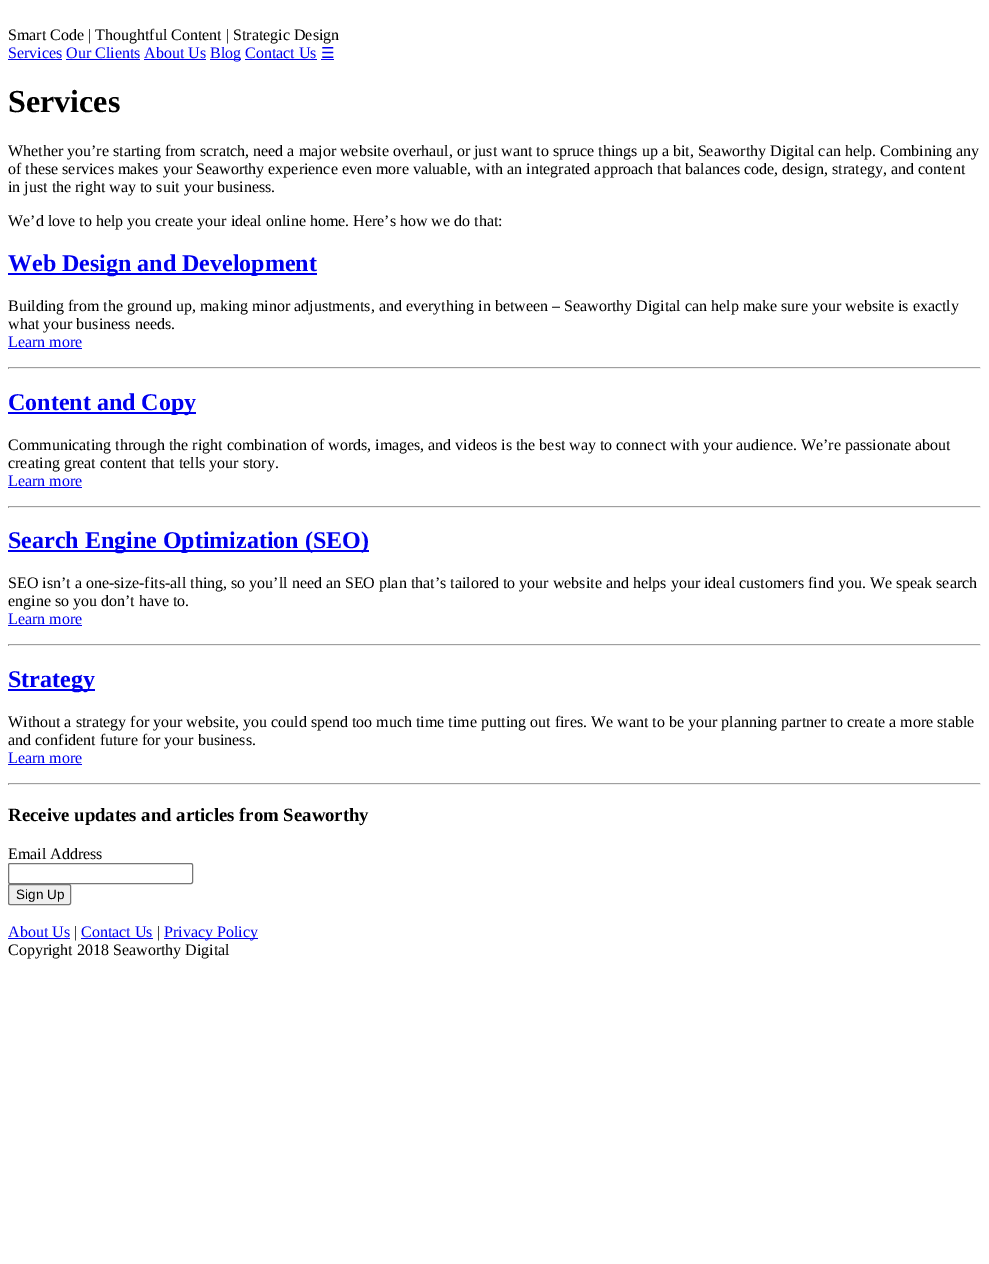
%!PS-Adobe-3.0
%%BoundingBox: 0 0 989 1264
%%LanguageLevel: 3
%%Pages: 1
%%EndComments
%%BeginProlog
/f { fill } bind def
/S { stroke } bind def
/q { gsave } bind def
/Q { grestore } bind def
/fn { [ exch dup neg 0 0 3 -1 roll 0 0 ] selectfont } def
/tx { moveto show } def
/bx { rectfill } def
/rr { 5 dict begin { /r /h /w /y /x } { exch def } forall
  x r add y moveto x w add y 2 copy h add r arct x w add y h add x 1 index r arct
  x y h add x y r arct x y 2 copy exch w add exch r arct closepath end } def
%%EndProlog
%%BeginSetup
<< /PageSize [989 1264] >> setpagedevice
%%EndSetup
%%Page: 1 1
0 1264 translate 1 -1 scale
4 setmiterlimit
1 setgray
0 0 989 1264 bx
/LiberationSerif-Regular 16 fn
0 setgray
(Smart Code | Thoughtful Content | Strategic Design) 8 40 tx
0 0 0.933 setrgbcolor
(Services Our Clients About Us) 8 58 tx
8 59 54 1 bx
210 59 31 1 bx
(Blog Contact Us) 210 58 tx
/DejaVuSans-Regular 15 fn
(☰) 321 58 tx
321 59 13 1 bx
66 59 74 1 bx
144 59 62 1 bx
245 59 72 1 bx
/LiberationSerif-Bold 32 fn
0 setgray
(Services) 8 112 tx
/LiberationSerif-Regular 16 fn
(Whether you’re starting from scratch, need a major website overhaul, or just want to spruce things up a bit, Seaworthy Digital can help. Combining any) 8 156 tx
(of these services makes your Seaworthy experience even more valuable, with an integrated approach that balances code, design, strategy, and content) 8 174 tx
(in just the right way to suit your business.) 8 192 tx
(We’d love to help you create your ideal online home. Here’s how we do that:) 8 226 tx
0 0 0.933 setrgbcolor
8 273 309 2 bx
/LiberationSerif-Bold 24 fn
(Web Design and Development) 8 271 tx
/LiberationSerif-Regular 16 fn
0 setgray
(Building from the ground up, making minor adjustments, and everything in between – Seaworthy Digital can help make sure your website is exactly) 8 311 tx
(what your business needs.) 8 329 tx
0 0 0.933 setrgbcolor
(Learn more) 8 347 tx
8 348 74 1 bx
0.624 setgray
8 367 973 1 bx
0.933 setgray
980 367 1 2 bx
8 368 973 1 bx
0.624 setgray
8 367 1 2 bx
0 0 0.933 setrgbcolor
8 412 188 2 bx
/LiberationSerif-Bold 24 fn
(Content and Copy) 8 410 tx
/LiberationSerif-Regular 16 fn
0 setgray
(Communicating through the right combination of words, images, and videos is the best way to connect with your audience. We’re passionate about) 8 450 tx
(creating great content that tells your story.) 8 468 tx
0 0 0.933 setrgbcolor
(Learn more) 8 486 tx
8 487 74 1 bx
0.624 setgray
8 506 973 1 bx
0.933 setgray
980 506 1 2 bx
8 507 973 1 bx
0.624 setgray
8 506 1 2 bx
0 0 0.933 setrgbcolor
8 550 361 2 bx
/LiberationSerif-Bold 24 fn
(Search Engine Optimization \(SEO\)) 8 548 tx
/LiberationSerif-Regular 16 fn
0 setgray
(SEO isn’t a one-size-fits-all thing, so you’ll need an SEO plan that’s tailored to your website and helps your ideal customers find you. We speak search) 8 588 tx
(engine so you don’t have to.) 8 606 tx
0 0 0.933 setrgbcolor
(Learn more) 8 624 tx
8 625 74 1 bx
0.624 setgray
8 644 973 1 bx
0.933 setgray
980 644 1 2 bx
8 645 973 1 bx
0.624 setgray
8 644 1 2 bx
0 0 0.933 setrgbcolor
8 689 87 2 bx
/LiberationSerif-Bold 24 fn
(Strategy) 8 687 tx
/LiberationSerif-Regular 16 fn
0 setgray
(Without a strategy for your website, you could spend too much time time putting out fires. We want to be your planning partner to create a more stable) 8 727 tx
(and confident future for your business.) 8 745 tx
0 0 0.933 setrgbcolor
(Learn more) 8 763 tx
8 764 74 1 bx
0.624 setgray
8 783 973 1 bx
0.933 setgray
980 783 1 2 bx
8 784 973 1 bx
0.624 setgray
8 783 1 2 bx
/LiberationSerif-Bold 18.75 fn
0 setgray
(Receive updates and articles from Seaworthy) 8 821 tx
/LiberationSerif-Regular 16 fn
(Email Address) 8 859 tx
0.463 setgray
8.5 863.5 184 20 1.5 rr S
0.937 setgray
8.5 884.5 62 20 1.5 rr q f Q
0.463 setgray
S
/LiberationSans-Regular 13.5 fn
0 setgray
(Sign Up) 16 899 tx
/LiberationSerif-Regular 16 fn
0 0 0.933 setrgbcolor
(About Us) 8 937 tx
8 938 62 1 bx
0 setgray
(|) 74 937 tx
0 0 0.933 setrgbcolor
(Contact Us) 81 937 tx
81 938 72 1 bx
0 setgray
(|) 157 937 tx
0 0 0.933 setrgbcolor
164 938 94 1 bx
(Privacy Policy) 164 937 tx
0 setgray
(Copyright 2018 Seaworthy Digital) 8 955 tx
showpage
%%EOF
